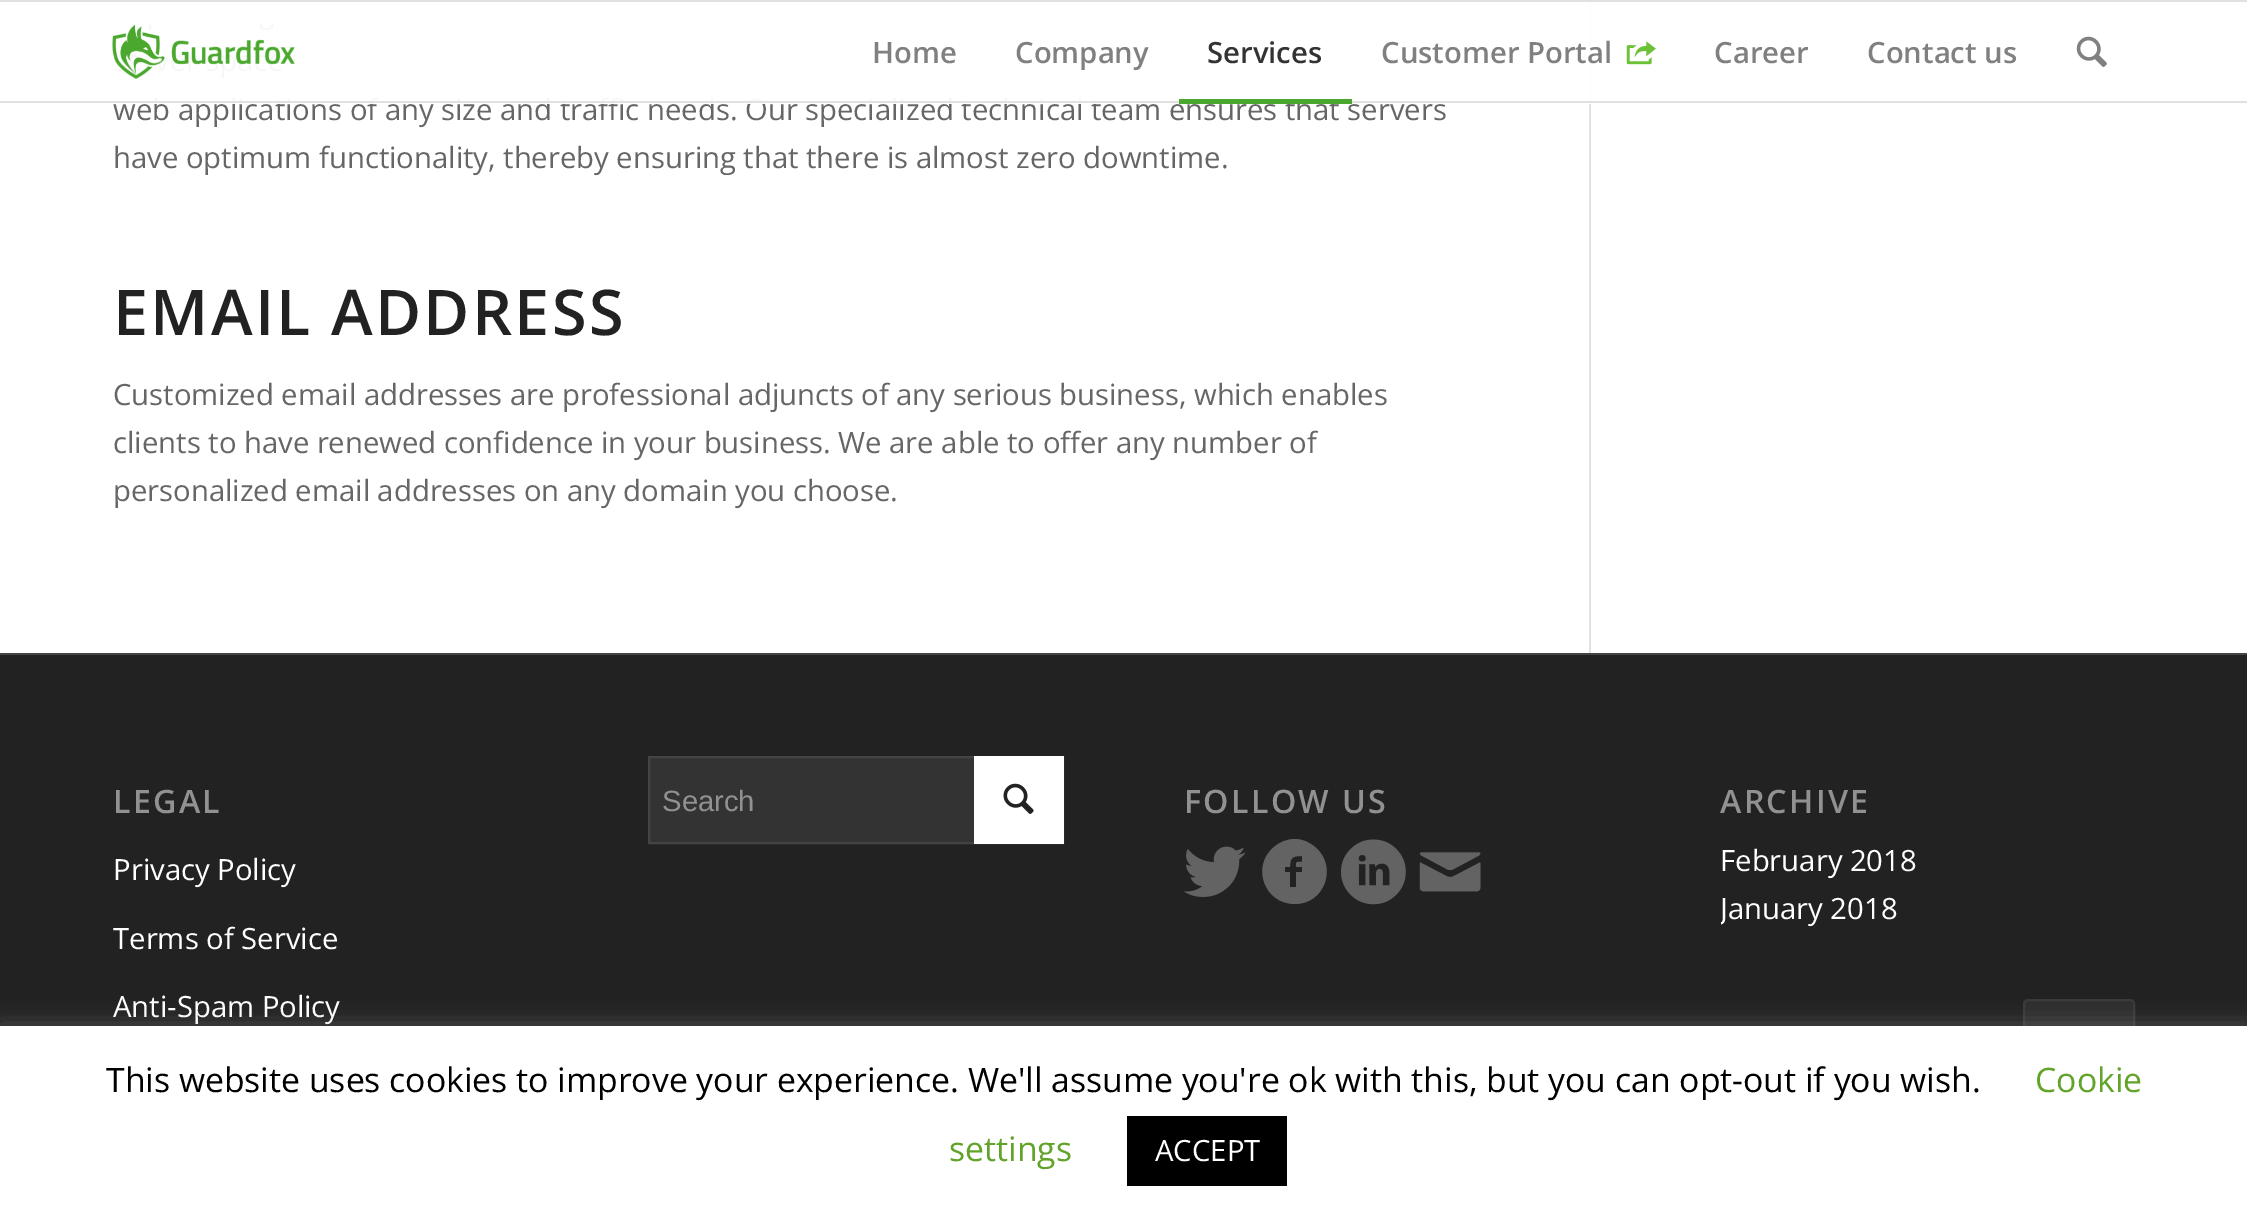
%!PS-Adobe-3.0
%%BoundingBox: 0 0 2247 1222
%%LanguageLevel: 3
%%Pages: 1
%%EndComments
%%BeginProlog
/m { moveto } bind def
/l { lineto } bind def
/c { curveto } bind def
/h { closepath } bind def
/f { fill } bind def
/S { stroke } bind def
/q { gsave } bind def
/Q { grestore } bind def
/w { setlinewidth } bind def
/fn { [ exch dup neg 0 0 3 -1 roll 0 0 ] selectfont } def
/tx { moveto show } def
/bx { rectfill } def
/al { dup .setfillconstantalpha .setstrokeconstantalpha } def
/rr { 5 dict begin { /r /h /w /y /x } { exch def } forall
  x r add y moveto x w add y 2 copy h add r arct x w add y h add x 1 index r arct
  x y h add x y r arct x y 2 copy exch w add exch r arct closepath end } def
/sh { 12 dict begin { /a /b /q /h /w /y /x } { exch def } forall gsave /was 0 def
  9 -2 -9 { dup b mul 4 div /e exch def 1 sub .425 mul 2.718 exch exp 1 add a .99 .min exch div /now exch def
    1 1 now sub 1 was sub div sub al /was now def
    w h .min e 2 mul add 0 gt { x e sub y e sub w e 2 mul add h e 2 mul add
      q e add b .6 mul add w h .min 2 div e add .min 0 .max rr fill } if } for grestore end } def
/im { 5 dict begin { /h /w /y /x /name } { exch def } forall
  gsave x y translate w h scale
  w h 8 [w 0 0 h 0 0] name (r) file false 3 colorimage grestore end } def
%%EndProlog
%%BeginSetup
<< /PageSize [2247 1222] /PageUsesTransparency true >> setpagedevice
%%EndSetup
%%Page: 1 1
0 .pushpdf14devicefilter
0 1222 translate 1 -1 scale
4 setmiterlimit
1 setgray
0 0 2247 1222 bx
0.882 setgray
1589 0 2 653 bx
/OpenSans-Regular 29.25 fn
0.4 setgray
(web applications of any size and traffic needs. Our specialized technical team ensures that servers) 113 120 tx
0.95 al
1 setgray
154 2 1437 102 bx
1 al
0.882 setgray
0 0 2247 2 bx
0 101 2247 2 bx
(image0.raw) 112 24 183 55 im
/OpenSans-SemiBold 29.25 fn
0.502 setgray
(Home) 872 63 tx
(Company) 1015 63 tx
0.2 setgray
(Services) 1207 63 tx
0.294 0.659 0.18 setrgbcolor
1179 99 173 5 bx
0.502 setgray
(Customer Portal) 1381 63 tx
(image1.raw) 1626 41 30 24 im
(Career) 1714 63 tx
(Contact us) 1867 63 tx
(image2.raw) 2076 36 31 31 im
/OpenSans-Regular 29.25 fn
0.4 setgray
(have optimum functionality, thereby ensuring that there is almost zero downtime.) 113 168 tx
/OpenSans-SemiBold 63 fn
0.133 setgray
113 335 m 2.25 0 (EMAIL ADDRESS) ashow
/OpenSans-Regular 29.25 fn
0.4 setgray
(Customized email addresses are professional adjuncts of any serious business, which enables) 113 405 tx
(clients to have renewed confidence in your business. We are able to offer any number of) 113 453 tx
(personalized email addresses on any domain you choose.) 113 501 tx
0.133 setgray
0 655 2247 371 bx
0.267 setgray
0 653 2247 2 bx
/OpenSans-SemiBold 32.25 fn
0.569 setgray
113 813 m 2.25 0 (LEGAL) ashow
/OpenSans-Regular 29.25 fn
1 setgray
(Privacy Policy) 113 880 tx
q
113 756 414 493 rectclip
(Terms of Service) 113 949 tx
Q
(Anti-Spam Policy) 113 1017 tx
0.2 setgray
650 758 324 84 bx
0.267 setgray
2 w
649 757 414 86 rectstroke
/LiberationSans-Regular 29.25 fn
0.569 setgray
(Search) 662 811 tx
1 setgray
974 756 90 88 bx
(image3.raw) 1003 783 31 31 im
/OpenSans-SemiBold 32.25 fn
0.569 setgray
1184 813 m 2.25 0 (FOLLOW US) ashow
(image4.raw) 1184 846 62 51 im
0.388 setgray
1295 839 m 1302 839 1309 842 1315 847 c 1338 866 1325 904 1295 904 c 1264 904 1251 866 1274 847 c 1280 842 1287 839 1295 839 c h 1302 862 m 1302 856 l 1293 856 1290 857 1290 867 c 1285 867 l 1285 872 l 1290 872 l 1290 887 l 1296 887 l 1296 872 l 1302 872 l 1302 867 l 1296 867 l 1296 861 1296 862 1302 862 c h f
(image5.raw) 1341 839 65 66 im
(image6.raw) 1419 852 62 40 im
0.569 setgray
1720 813 m 2.25 0 (ARCHIVE) ashow
/OpenSans-Regular 29.25 fn
1 setgray
(February 2018) 1720 871 tx
q
1721 756 414 178 rectclip
(January 2018) 1720 919 tx
Q
0.18 setgray
2024 1000 110 111 4 rr q f Q
0.227 setgray
S
0.675 0.671 0.671 setrgbcolor
0 1024 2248 198 0 11 0.3 sh
1 setgray
0 1026 2247 196 bx
/OpenSans-Regular 33.75 fn
0 setgray
(This website uses cookies to improve your experience. We'll assume you're ok with this, but you can opt-out if you wish.) 106 1092 tx
0.384 0.639 0.161 setrgbcolor
(Cookie) 2035 1092 tx
(settings) 949 1161 tx
0 setgray
1127 1116 160 70 bx
/OpenSans-Regular 29.25 fn
1 setgray
(ACCEPT) 1155 1161 tx
.poppdf14devicefilter showpage
%%EOF
